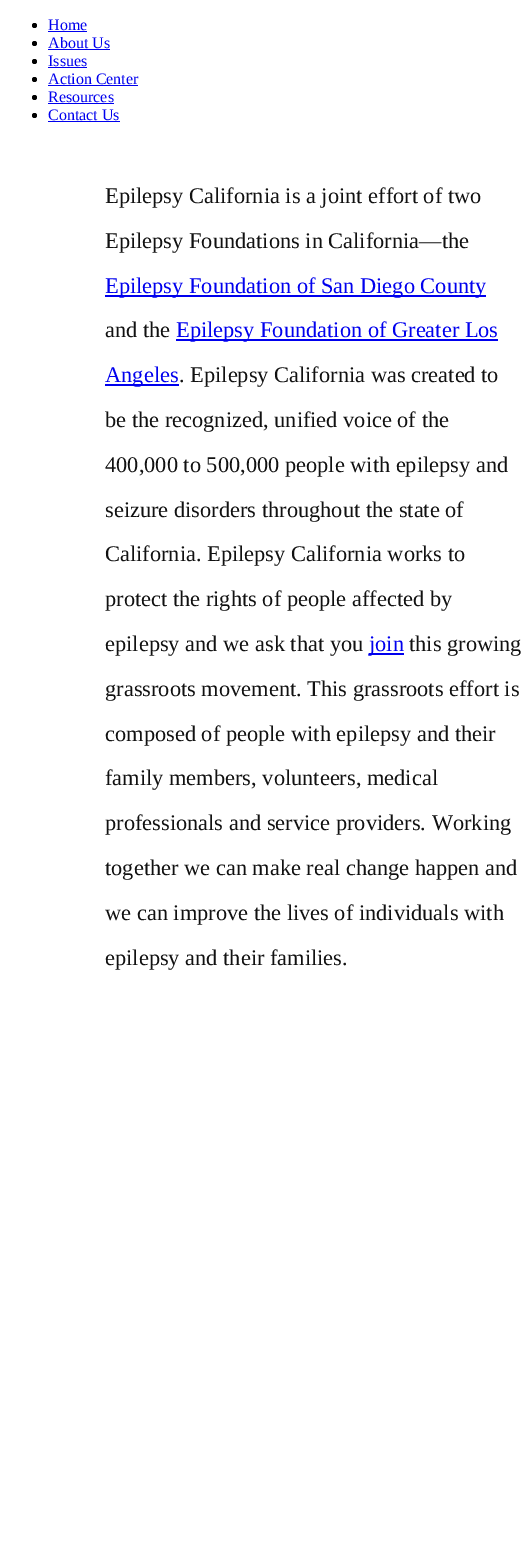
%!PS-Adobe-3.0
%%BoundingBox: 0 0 531 1558
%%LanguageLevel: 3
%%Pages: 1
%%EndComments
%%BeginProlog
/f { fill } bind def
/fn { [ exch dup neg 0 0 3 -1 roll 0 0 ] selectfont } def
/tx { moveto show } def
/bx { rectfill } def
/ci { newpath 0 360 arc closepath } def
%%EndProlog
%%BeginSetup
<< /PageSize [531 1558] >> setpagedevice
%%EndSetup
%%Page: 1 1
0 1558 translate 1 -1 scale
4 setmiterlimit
1 setgray
0 0 531 1558 bx
0 setgray
34.5 25.5 2.5 ci f
/LiberationSerif-Regular 16 fn
0 0 0.933 setrgbcolor
(Home) 48 30 tx
48 31 39 1 bx
0 setgray
34.5 43.5 2.5 ci f
0 0 0.933 setrgbcolor
(About Us) 48 48 tx
48 49 62 1 bx
0 setgray
34.5 61.5 2.5 ci f
0 0 0.933 setrgbcolor
(Issues) 48 66 tx
48 67 39 1 bx
0 setgray
34.5 79.5 2.5 ci f
0 0 0.933 setrgbcolor
(Action Center) 48 84 tx
48 85 90 1 bx
0 setgray
34.5 97.5 2.5 ci f
0 0 0.933 setrgbcolor
(Resources) 48 102 tx
48 103 66 1 bx
0 setgray
34.5 115.5 2.5 ci f
0 0 0.933 setrgbcolor
(Contact Us) 48 120 tx
48 121 72 1 bx
/LiberationSerif-Regular 22.4 fn
0.067 setgray
(Epilepsy California is a joint effort of two) 105 203 tx
(Epilepsy Foundations in California—the) 105 248 tx
0 0 0.933 setrgbcolor
105 295 381 2 bx
(Epilepsy Foundation of San Diego County) 105 293 tx
0.067 setgray
(and the) 105 337 tx
0 0 0.933 setrgbcolor
176 339 322 2 bx
(Epilepsy Foundation of Greater Los) 176 337 tx
105 384 74 2 bx
(Angeles) 105 382 tx
0.067 setgray
(. Epilepsy California was created to) 179 382 tx
(be the recognized, unified voice of the) 105 427 tx
(400,000 to 500,000 people with epilepsy and) 105 472 tx
(seizure disorders throughout the state of) 105 517 tx
(California. Epilepsy California works to) 105 561 tx
(protect the rights of people affected by) 105 606 tx
(epilepsy and we ask that you) 105 651 tx
0 0 0.933 setrgbcolor
369 653 35 2 bx
(join) 369 651 tx
0.067 setgray
(this growing) 409 651 tx
(grassroots movement. This grassroots effort is) 105 696 tx
(composed of people with epilepsy and their) 105 741 tx
(family members, volunteers, medical) 105 785 tx
(professionals and service providers. Working) 105 830 tx
(together we can make real change happen and) 105 875 tx
(we can improve the lives of individuals with) 105 920 tx
(epilepsy and their families.) 105 965 tx
showpage
%%EOF
